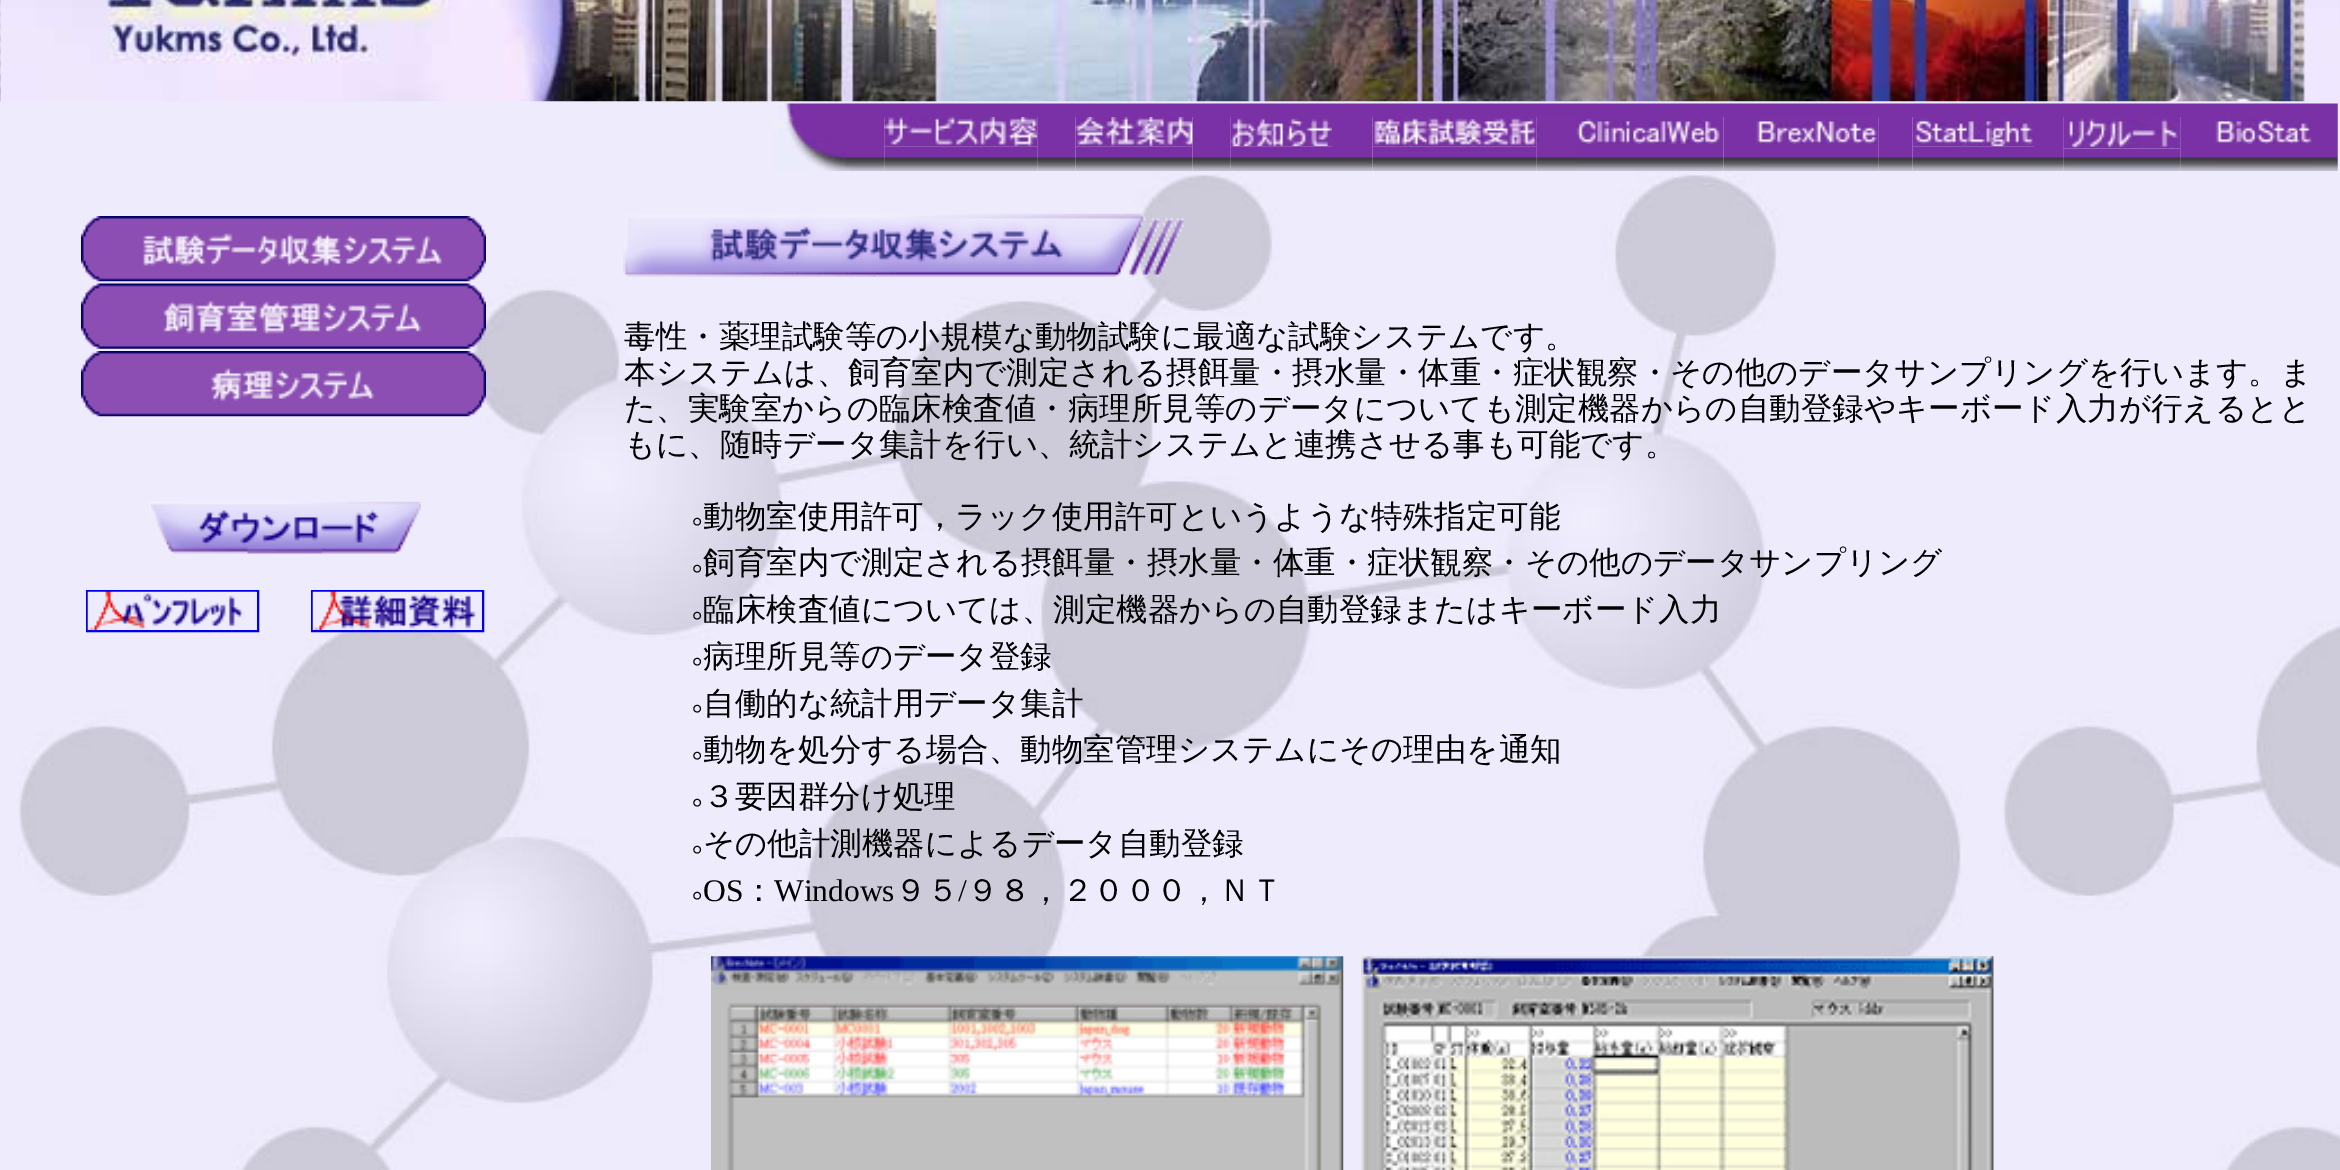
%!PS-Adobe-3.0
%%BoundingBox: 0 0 2340 1170
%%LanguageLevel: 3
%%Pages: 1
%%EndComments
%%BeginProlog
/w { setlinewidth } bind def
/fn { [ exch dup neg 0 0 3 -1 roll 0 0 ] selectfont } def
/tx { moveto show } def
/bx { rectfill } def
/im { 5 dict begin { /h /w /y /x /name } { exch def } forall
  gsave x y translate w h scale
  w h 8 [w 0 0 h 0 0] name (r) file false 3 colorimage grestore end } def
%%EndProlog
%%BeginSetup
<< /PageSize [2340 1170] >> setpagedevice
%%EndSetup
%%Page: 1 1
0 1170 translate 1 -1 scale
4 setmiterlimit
1 setgray
0 0 2340 1170 bx
(image0.raw) 0 101 2340 1069 im
(image1.raw) 0 0 2340 102 im
(image2.raw) 774 103 1564 14 im
(image3.raw) 774 117 111 54 im
(image4.raw) 884 117 154 30 im
(image5.raw) 1037 117 39 54 im
(image6.raw) 1075 117 118 30 im
(image7.raw) 1192 117 39 54 im
(image8.raw) 1230 117 102 30 im
(image9.raw) 1332 117 41 54 im
(image10.raw) 1372 117 165 30 im
(image11.raw) 1536 117 39 54 im
(image12.raw) 1575 117 149 27 im
(image13.raw) 1723 117 32 54 im
(image14.raw) 1755 117 124 27 im
(image15.raw) 1878 117 35 54 im
(image16.raw) 1912 117 122 30 im
(image17.raw) 2034 117 30 54 im
(image18.raw) 2063 117 118 32 im
(image19.raw) 2180 117 34 54 im
(image20.raw) 2214 117 99 27 im
(image21.raw) 2313 117 25 54 im
(image22.raw) 1575 144 149 27 im
(image23.raw) 1755 144 124 27 im
(image24.raw) 2214 144 99 27 im
(image25.raw) 884 146 154 25 im
(image26.raw) 1075 146 118 25 im
(image27.raw) 1230 146 102 25 im
(image28.raw) 1372 146 165 25 im
(image29.raw) 1912 146 122 25 im
(image30.raw) 2063 148 118 23 im
(image31.raw) 81 216 405 66 im
(image32.raw) 81 283 405 66 im
(image33.raw) 81 351 405 66 im
(image34.raw) 149 501 272 53 im
0 0 0.933 setrgbcolor
2 w
87 591 171 40 rectstroke
(image35.raw) 87 591 170 39 im
312 591 171 40 rectstroke
(image36.raw) 312 591 170 39 im
(image37.raw) 623 213 561 64 im
/WenQuanYiZenHei-Medium 31.5 fn
0 setgray
(毒性・薬理試験等の小規模な動物試験に最適な試験システムです。) 624 347 tx
(本システムは、飼育室内で測定される摂餌量・摂水量・体重・症状観察・その他のデータサンプリングを行います。ま) 624 383 tx
(た、実験室からの臨床検査値・病理所見等のデータについても測定機器からの自動登録やキーボード入力が行えるとと) 624 419 tx
(もに、随時データ集計を行い、統計システムと連携させる事も可能です。) 624 455 tx
/LiberationSerif-Regular 26 fn
(°) 692 535 tx
/WenQuanYiZenHei-Medium 31.5 fn
(動物室使用許可，ラック使用許可というような特殊指定可能) 703 527 tx
/LiberationSerif-Regular 26 fn
(°) 692 582 tx
/WenQuanYiZenHei-Medium 31.5 fn
(飼育室内で測定される摂餌量・摂水量・体重・症状観察・その他のデータサンプリング) 703 573 tx
/LiberationSerif-Regular 26 fn
(°) 692 629 tx
/WenQuanYiZenHei-Medium 31.5 fn
(臨床検査値については、測定機器からの自動登録またはキーボード入力) 703 620 tx
/LiberationSerif-Regular 26 fn
(°) 692 675 tx
/WenQuanYiZenHei-Medium 31.5 fn
(病理所見等のデータ登録) 703 667 tx
/LiberationSerif-Regular 26 fn
(°) 692 722 tx
/WenQuanYiZenHei-Medium 31.5 fn
(自働的な統計用データ集計) 703 714 tx
/LiberationSerif-Regular 26 fn
(°) 692 769 tx
/WenQuanYiZenHei-Medium 31.5 fn
(動物を処分する場合、動物室管理システムにその理由を通知) 703 760 tx
/LiberationSerif-Regular 26 fn
(°) 692 816 tx
/WenQuanYiZenHei-Medium 31.5 fn
(３要因群分け処理) 703 807 tx
/LiberationSerif-Regular 26 fn
(°) 692 863 tx
/WenQuanYiZenHei-Medium 31.5 fn
(その他計測機器によるデータ自動登録) 703 854 tx
/LiberationSerif-Regular 26 fn
(°) 692 909 tx
/LiberationSerif-Regular 31.5 fn
(OS) 703 901 tx
/WenQuanYiZenHei-Medium 31.5 fn
(：) 743 901 tx
/LiberationSerif-Regular 31.5 fn
(Windows) 774 901 tx
/WenQuanYiZenHei-Medium 31.5 fn
(９５) 895 901 tx
/LiberationSerif-Regular 31.5 fn
(/) 958 901 tx
/WenQuanYiZenHei-Medium 31.5 fn
(９８，２０００，ＮＴ) 967 901 tx
(image38.raw) 711 956 633 214 im
(image39.raw) 1361 956 633 214 im
showpage
%%EOF
